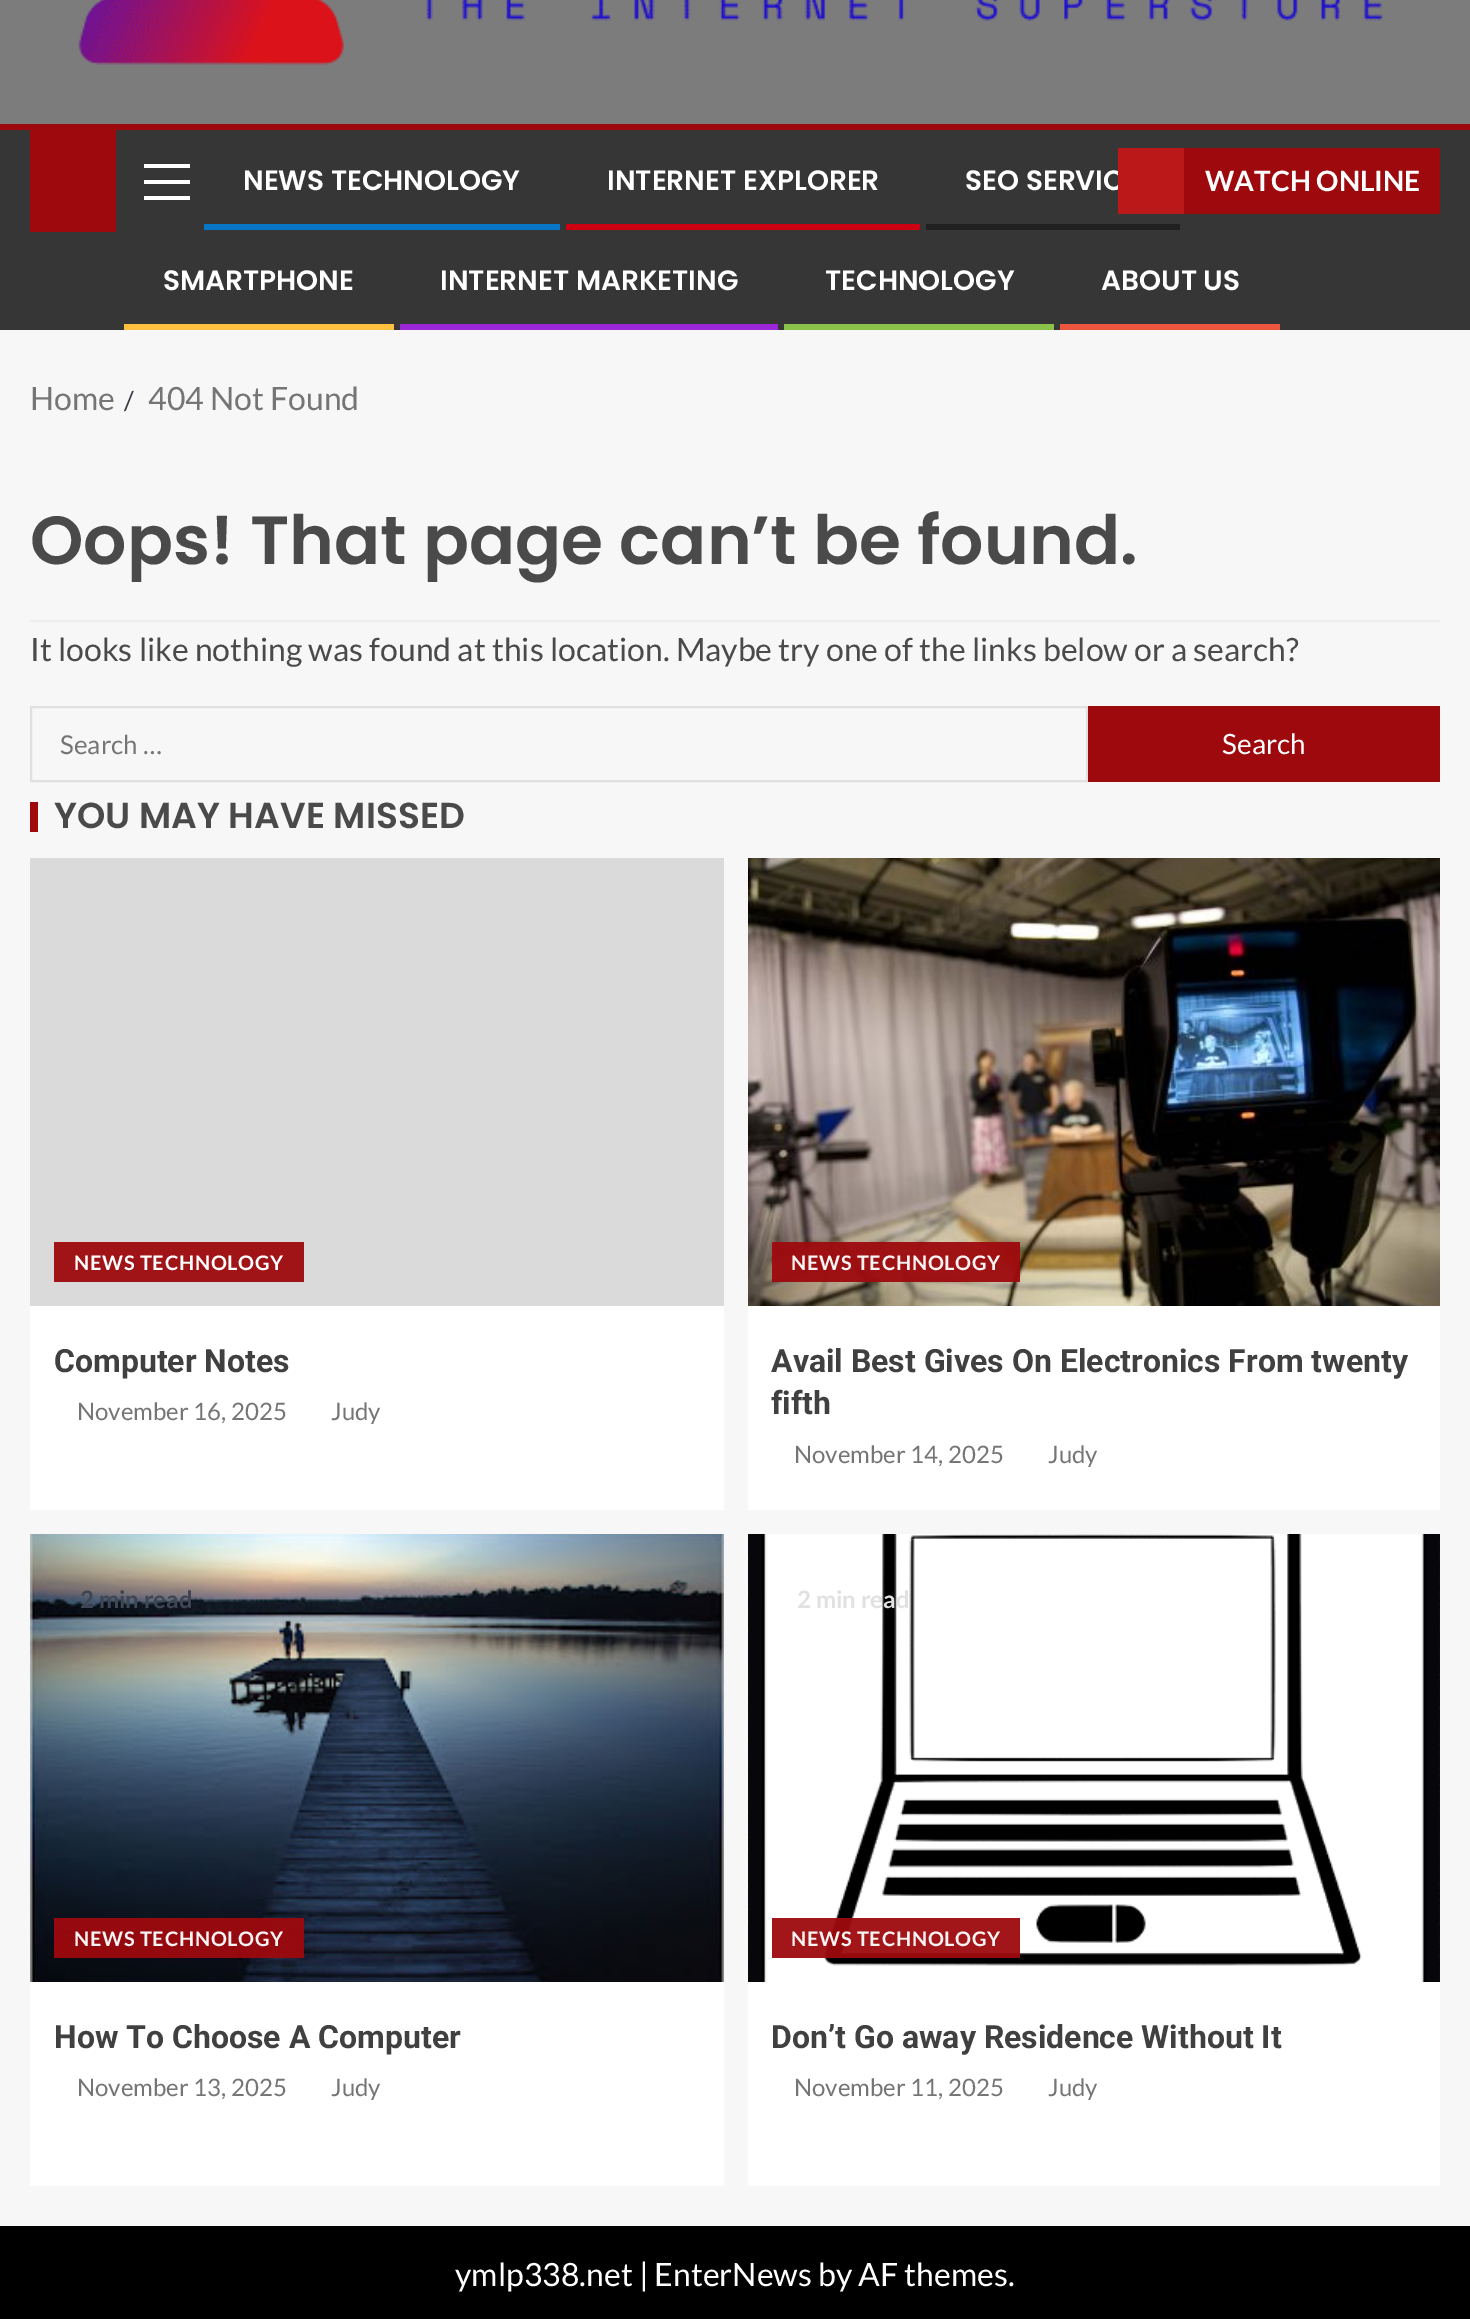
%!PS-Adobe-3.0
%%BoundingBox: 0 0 1470 2319
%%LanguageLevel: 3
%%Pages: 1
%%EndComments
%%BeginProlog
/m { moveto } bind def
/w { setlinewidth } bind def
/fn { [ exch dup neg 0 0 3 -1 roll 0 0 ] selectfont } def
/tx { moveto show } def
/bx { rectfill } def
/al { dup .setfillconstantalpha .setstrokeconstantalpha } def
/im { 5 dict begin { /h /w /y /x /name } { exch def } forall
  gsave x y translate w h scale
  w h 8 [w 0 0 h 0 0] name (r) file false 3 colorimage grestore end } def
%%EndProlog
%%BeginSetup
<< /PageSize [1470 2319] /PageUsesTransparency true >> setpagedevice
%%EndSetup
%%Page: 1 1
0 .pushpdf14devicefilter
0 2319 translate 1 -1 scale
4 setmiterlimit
0.969 setgray
0 0 1470 2319 bx
0.486 setgray
0 0 1470 124 bx
(image0.raw) 78 0 1305 66 im
0.212 setgray
0 130 1470 200 bx
0.616 0.035 0.051 setrgbcolor
0 124 1470 6 bx
30 130 86 102 bx
1 setgray
144 180 46 4 bx
144 164 46 4 bx
144 196 46 4 bx
/Poppins-SemiBold 28 fn
(NEWS TECHNOLOGY) 243 190 tx
0.027 0.463 0.776 setrgbcolor
204 224 356 6 bx
1 setgray
(INTERNET EXPLORER) 607 190 tx
0.8 0 0.063 setrgbcolor
566 224 354 6 bx
1 setgray
(SEO SERVIC) 965 190 tx
0.125 setgray
926 224 254 6 bx
1 setgray
(SMARTPHONE) 163 290 tx
1 0.749 0.247 setrgbcolor
124 324 270 6 bx
1 setgray
(INTERNET MARKETING) 440 290 tx
0.612 0.153 0.851 setrgbcolor
400 324 378 6 bx
1 setgray
(TECHNOLOGY) 825 290 tx
0.545 0.765 0.29 setrgbcolor
784 324 270 6 bx
1 setgray
(ABOUT US) 1101 290 tx
0.929 0.333 0.247 setrgbcolor
1060 324 220 6 bx
0.733 0.098 0.098 setrgbcolor
1118 148 66 66 bx
0.616 0.035 0.051 setrgbcolor
1184 148 256 66 bx
/Lato-Bold 28 fn
1 setgray
(WATCH ONLINE) 1205 191 tx
/Lato-Regular 32 fn
0.459 setgray
(Home) 30 410 tx
/Lato-Regular 26 fn
0.224 0.243 0.275 setrgbcolor
(/) 124 410 tx
/Lato-Regular 32 fn
0.459 setgray
(404 Not Found) 148 410 tx
0.933 setgray
30 620 1410 2 bx
/Poppins-SemiBold 68 fn
0.29 setgray
(Oops! That page can’t be found.) 30 564 tx
/Lato-Regular 32 fn
(It looks like nothing was found at this location. Maybe try one of the links below or a search?) 30 661 tx
0.878 setgray
2 w
31 707 1056 74 rectstroke
/Lato-Regular 26 fn
0.459 setgray
(Search …) 60 754 tx
0.616 0.035 0.051 setrgbcolor
1088 706 352 76 bx
/Lato-Regular 28 fn
1 setgray
(Search) 1222 754 tx
0.616 0.035 0.051 setrgbcolor
30 802 8 30 bx
/Poppins-SemiBold 36 fn
0.29 setgray
(YOU MAY HAVE MISSED) 54 828 tx
0.855 setgray
30 858 694 448 bx
0.627 0.075 0.09 setrgbcolor
54 1242 250 40 bx
/Lato-Bold 20 fn
1 setgray
74 1270 m 0.75 0 (NEWS TECHNOLOGY) ashow
30 1306 694 204 bx
/Roboto-Bold 32 fn
0.251 setgray
(Computer Notes) 54 1372 tx
/Lato-Regular 24 fn
0.459 setgray
(November 16, 2025) 77 1420 tx
(Judy) 331 1420 tx
(image1.raw) 748 858 692 448 im
0.95 al
0.616 0.035 0.051 setrgbcolor
772 1242 248 40 bx
/Lato-Bold 20 fn
1 al
0.98 0.953 0.953 setrgbcolor
791 1270 m 0.75 0 (NEWS TECHNOLOGY) ashow
1 setgray
748 1306 692 204 bx
/Roboto-Bold 32 fn
0.251 setgray
(Avail Best Gives On Electronics From twenty) 771 1372 tx
(fifth) 771 1414 tx
/Lato-Regular 24 fn
0.459 setgray
(November 14, 2025) 794 1463 tx
(Judy) 1048 1463 tx
(image2.raw) 30 1534 694 448 im
/Lato-Bold 24 fn
0.247 0.271 0.322 setrgbcolor
(2 min read) 80 1608 tx
0.95 al
0.616 0.035 0.051 setrgbcolor
54 1918 250 40 bx
/Lato-Bold 20 fn
1 al
0.98 0.953 0.953 setrgbcolor
74 1946 m 0.75 0 (NEWS TECHNOLOGY) ashow
1 setgray
30 1982 694 204 bx
/Roboto-Bold 32 fn
0.251 setgray
(How To Choose A Computer) 54 2048 tx
/Lato-Regular 24 fn
0.459 setgray
(November 13, 2025) 77 2096 tx
(Judy) 331 2096 tx
(image3.raw) 748 1534 692 448 im
/Lato-Bold 24 fn
0.882 setgray
(2 min read) 797 1608 tx
0.95 al
0.616 0.035 0.051 setrgbcolor
772 1918 248 40 bx
/Lato-Bold 20 fn
1 al
0.98 0.953 0.953 setrgbcolor
791 1946 m 0.75 0 (NEWS TECHNOLOGY) ashow
1 setgray
748 1982 692 204 bx
/Roboto-Bold 32 fn
0.251 setgray
(Don’t Go away Residence Without It) 771 2048 tx
/Lato-Regular 24 fn
0.459 setgray
(November 11, 2025) 794 2096 tx
(Judy) 1048 2096 tx
0 setgray
0 2226 1470 93 bx
/Lato-Regular 32 fn
1 setgray
(ymlp338.net | EnterNews by AF themes.) 455 2286 tx
.poppdf14devicefilter showpage
%%EOF
